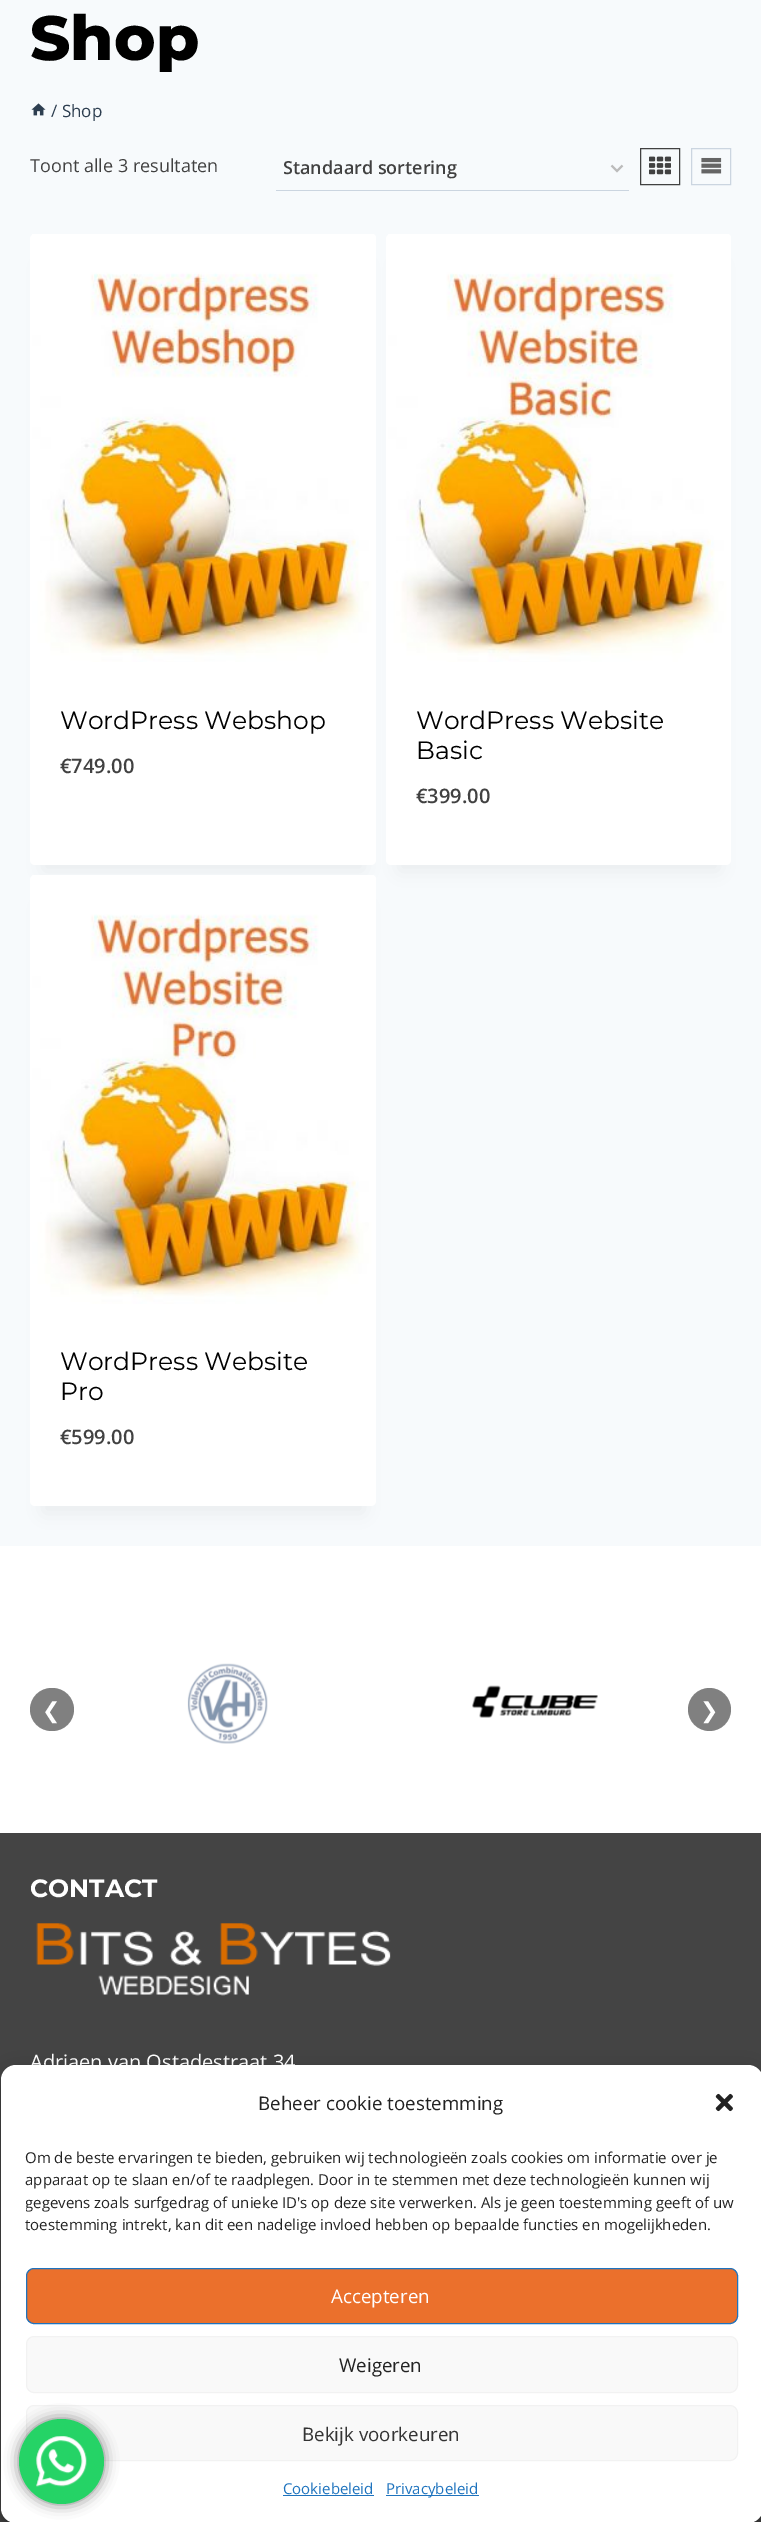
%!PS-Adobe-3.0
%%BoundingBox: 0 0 761 2522
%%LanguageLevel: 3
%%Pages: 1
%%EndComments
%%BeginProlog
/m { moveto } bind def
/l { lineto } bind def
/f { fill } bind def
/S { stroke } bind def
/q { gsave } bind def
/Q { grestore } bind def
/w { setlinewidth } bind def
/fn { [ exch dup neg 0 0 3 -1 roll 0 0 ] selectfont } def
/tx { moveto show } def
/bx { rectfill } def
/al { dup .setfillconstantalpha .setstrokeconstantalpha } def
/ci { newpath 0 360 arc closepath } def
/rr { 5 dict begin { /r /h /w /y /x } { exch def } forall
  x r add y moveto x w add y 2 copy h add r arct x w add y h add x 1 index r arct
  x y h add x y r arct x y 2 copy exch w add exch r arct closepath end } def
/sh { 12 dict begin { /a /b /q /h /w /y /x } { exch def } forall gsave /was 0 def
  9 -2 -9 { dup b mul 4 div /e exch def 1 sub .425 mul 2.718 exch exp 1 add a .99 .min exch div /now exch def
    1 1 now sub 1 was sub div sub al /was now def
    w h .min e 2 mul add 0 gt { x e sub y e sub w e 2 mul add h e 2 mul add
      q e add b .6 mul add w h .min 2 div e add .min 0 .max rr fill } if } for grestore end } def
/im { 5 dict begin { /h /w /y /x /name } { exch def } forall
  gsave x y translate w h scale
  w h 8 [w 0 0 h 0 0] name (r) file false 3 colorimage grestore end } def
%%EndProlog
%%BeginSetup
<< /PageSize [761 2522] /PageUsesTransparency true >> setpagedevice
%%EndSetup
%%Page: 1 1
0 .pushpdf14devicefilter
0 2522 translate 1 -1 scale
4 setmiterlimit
0.969 0.98 0.988 setrgbcolor
0 0 761 2522 bx
/Montserrat-ExtraBold 62.5 fn
0 setgray
(Shop) 30 60 tx
(image0.raw) 31 103 15 13 im
/OpenSans-Regular 17 fn
0.176 0.243 0.314 setrgbcolor
(/ Shop) 51 117 tx
/OpenSans-Regular 18 fn
0.255 setgray
(Toont alle 3 resultaten) 30 172 tx
0.733 setgray
1.8 w
611.5 165.5 m 617 171 l 622.5 165.5 l S
0.796 0.835 0.878 setrgbcolor
276 190 353 1 bx
/OpenSans-SemiBold 18 fn
0.255 setgray
(Standaard sortering) 283 174 tx
1 w
640.5 148.5 39 36 rectstroke
(image1.raw) 649 156 22 19 im
0.796 0.835 0.878 setrgbcolor
691.5 148.5 39 36 rectstroke
(image2.raw) 701 157 21 17 im
0 setgray
43 265 321 606 0 9.5 0.05 sh
1 setgray
30 234 346 631 5 rr f
(image3.raw) 32 234 344 428 im
/Montserrat-Regular 25 fn
0 setgray
(WordPress Webshop) 60 729 tx
/OpenSans-SemiBold 20 fn
0.255 setgray
(€749.00) 60 773 tx
0 setgray
399 265 320 606 0 9.5 0.05 sh
1 setgray
386 234 345 631 5 rr f
(image4.raw) 388 234 343 428 im
/Montserrat-Regular 25 fn
0 setgray
(WordPress Website) 416 729 tx
(Basic) 416 759 tx
/OpenSans-SemiBold 20 fn
0.255 setgray
(€399.00) 416 803 tx
0 setgray
43 906 321 607 0 9.5 0.05 sh
1 setgray
30 875 346 631 5 rr f
(image5.raw) 32 875 344 429 im
/Montserrat-Regular 25 fn
0 setgray
(WordPress Website) 60 1370 tx
(Pro) 60 1400 tx
/OpenSans-SemiBold 20 fn
0.255 setgray
(€599.00) 60 1444 tx
0.267 setgray
0 1833 761 689 bx
1 setgray
0 1546 761 287 bx
0.502 setgray
30 1688 44 43 21.5 rr f
/DejaVuSans-Regular 22 fn
1 setgray
(❮) 42 1718 tx
(image6.raw) 187 1663 81 81 im
(image7.raw) 472 1685 126 33 im
0.502 setgray
709.5 1709.5 21.5 ci f
1 setgray
(❯) 700 1718 tx
/Montserrat-Bold 25 fn
(CONTACT) 30 1897 tx
(image8.raw) 36 1923 355 73 im
/OpenSans-Regular 20 fn
(Adriaen van Ostadestraat 34) 30 2069 tx
0 setgray
1 2073 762 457 15 4 0.23 sh
1 2078 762 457 15 12.5 0.19 sh
1 setgray
1 2065 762 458 15 rr f
/OpenSans-Regular 18.75 fn
0.133 setgray
(Beheer cookie toestemming) 258 2110 tx
(image9.raw) 715 2093 18 19 im
/OpenSans-Regular 15 fn
(Om de beste ervaringen te bieden, gebruiken wij technologieën zoals cookies om informatie over je) 25 2163 tx
(apparaat op te slaan en/of te raadplegen. Door in te stemmen met deze technologieën kunnen wij) 25 2185 tx
q
26 2146 712 97 rectclip
(gegevens zoals surfgedrag of unieke ID's op deze site verwerken. Als je geen toestemming geeft of uw) 25 2208 tx
Q
(toestemming intrekt, kan dit een nadelige invloed hebben op bepaalde functies en mogelijkheden.) 25 2230 tx
0.922 0.439 0.173 setrgbcolor
26.5 2268.5 711 55 7.5 rr q f Q
0.118 0.451 0.745 setrgbcolor
S
/OpenSans-Regular 18.75 fn
1 setgray
(Accepteren) 331 2303 tx
0.976 setgray
26.5 2336.5 711 56 7.5 rr q f Q
0.949 setgray
S
0.133 setgray
(Weigeren) 339 2372 tx
0.976 setgray
26.5 2405.5 711 55 7.5 rr q f Q
0.949 setgray
S
0.2 setgray
(Bekijk voorkeuren) 302 2441 tx
/OpenSans-Regular 15 fn
0.118 0.451 0.745 setrgbcolor
(Cookiebeleid) 283 2494 tx
283 2495 91 1 bx
386 2495 93 1 bx
(Privacybeleid) 386 2494 tx
0 setgray
19 2419 85 85 42.5 7 0.5 sh
0.145 0.827 0.4 setrgbcolor
61.5 2461.5 42.5 ci f
(image10.raw) 36 2436 51 51 im
.poppdf14devicefilter showpage
%%EOF
